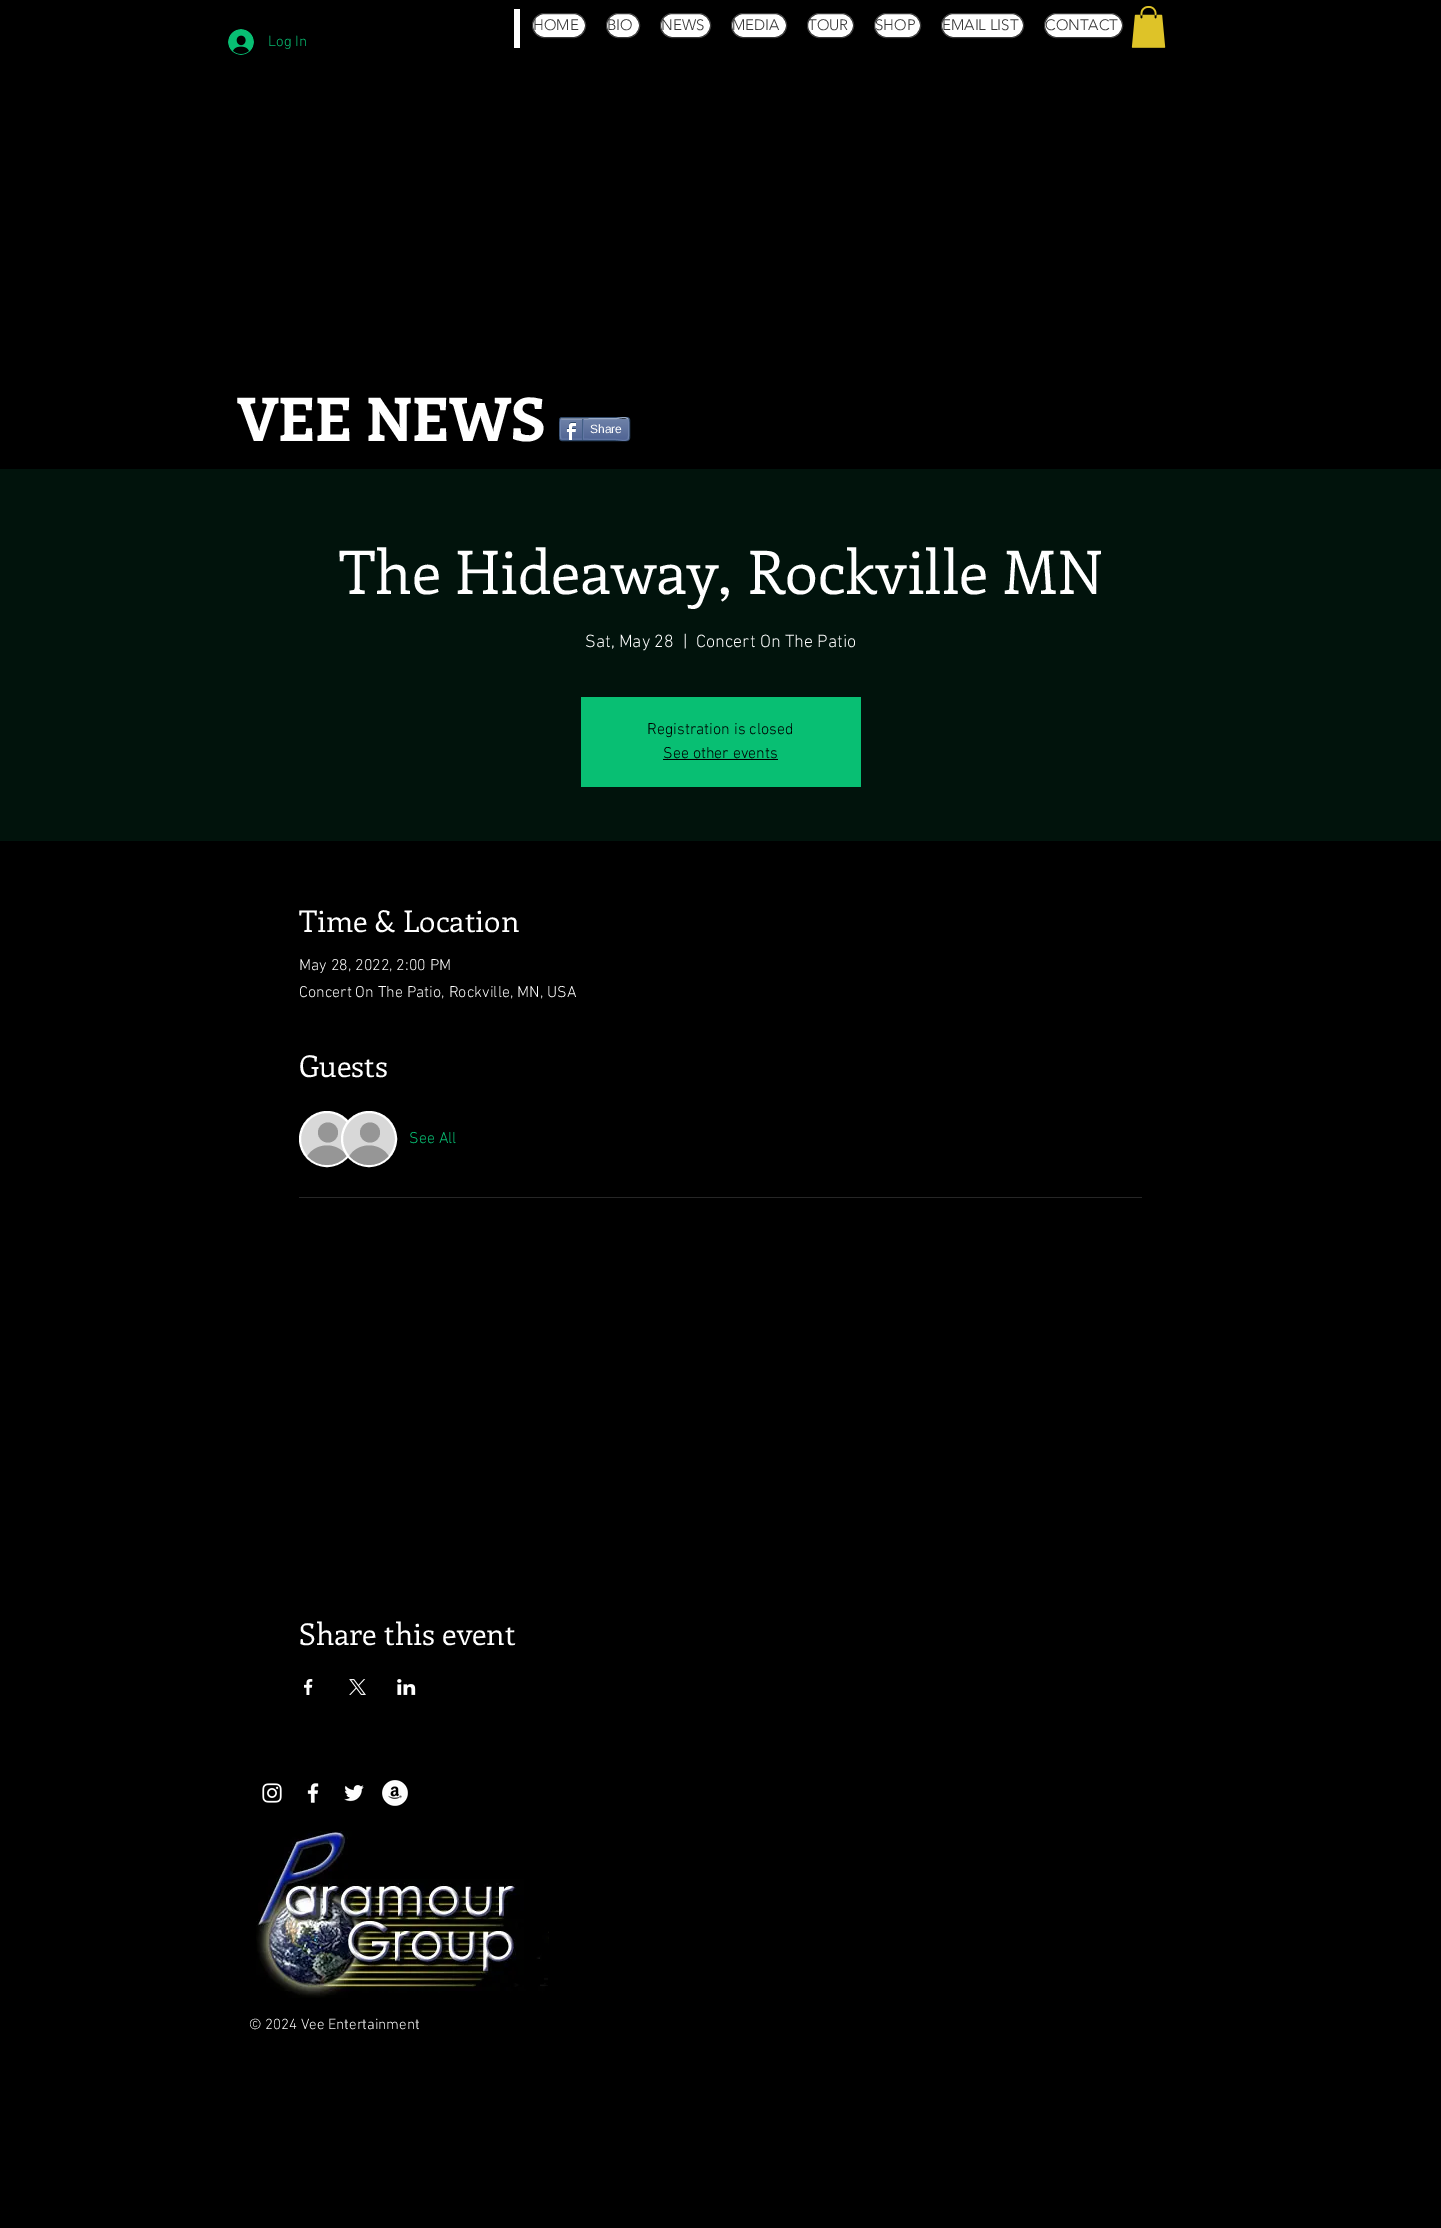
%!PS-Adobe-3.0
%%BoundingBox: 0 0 1441 2228
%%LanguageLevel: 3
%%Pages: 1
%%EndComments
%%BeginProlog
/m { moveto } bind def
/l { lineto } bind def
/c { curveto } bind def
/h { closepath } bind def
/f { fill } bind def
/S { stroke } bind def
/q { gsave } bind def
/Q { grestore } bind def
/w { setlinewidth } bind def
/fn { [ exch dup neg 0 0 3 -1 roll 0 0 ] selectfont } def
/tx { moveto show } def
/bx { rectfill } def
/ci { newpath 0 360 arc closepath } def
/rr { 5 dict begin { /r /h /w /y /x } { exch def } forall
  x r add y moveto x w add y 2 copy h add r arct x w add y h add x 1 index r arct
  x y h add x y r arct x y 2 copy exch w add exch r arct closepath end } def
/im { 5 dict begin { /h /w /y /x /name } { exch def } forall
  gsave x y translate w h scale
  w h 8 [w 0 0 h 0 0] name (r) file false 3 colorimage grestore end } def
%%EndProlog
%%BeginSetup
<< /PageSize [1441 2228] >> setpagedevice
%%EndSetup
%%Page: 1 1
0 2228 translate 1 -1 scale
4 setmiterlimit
0 setgray
0 0 1441 2228 bx
1 setgray
514 9 6 39 bx
532.5 13.5 53 24 12 rr q f Q
0.22 setgray
S
/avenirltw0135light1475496-Light 15 fn
(HOME) 533 30 tx
1 setgray
606.5 13.5 33 24 12 rr q f Q
0.22 setgray
S
(BIO) 607 30 tx
1 setgray
660.5 13.5 50 24 12 rr q f Q
0.22 setgray
S
(NEWS) 661 30 tx
1 setgray
731.5 13.5 55 24 12 rr q f Q
0.22 setgray
S
(MEDIA) 732 30 tx
1 setgray
807.5 13.5 46 24 12 rr q f Q
0.22 setgray
S
(TOUR) 808 30 tx
1 setgray
874.5 13.5 46 24 12 rr q f Q
0.22 setgray
S
(SHOP) 875 30 tx
1 setgray
941.5 13.5 82 24 12 rr q f Q
0.22 setgray
S
(EMAIL LIST) 942 30 tx
1 setgray
1044.5 13.5 78 24 12 rr q f Q
0.22 setgray
S
(CONTACT) 1045 30 tx
(image0.raw) 1131 6 35 42 im
(image1.raw) 228 29 26 26 im
/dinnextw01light-Light 15 fn
0.031 0.749 0.451 setrgbcolor
(Log In) 268 46 tx
/Enriqueta-Bold 60 fn
1 setgray
(VEE NEWS) 237 441 tx
0.176 0.271 0.396 setrgbcolor
559.5 417.5 70 23 2.5 rr S
(image2.raw) 560 419 69 21 im
0.604 0.671 0.776 setrgbcolor
561 419 m 616 418.5 l 620 418.5 625 416 628 419 c S
0.435 0.514 0.678 setrgbcolor
628 419 m 629 419.5 629 438.5 628 439 c S
0.38 0.463 0.639 setrgbcolor
628 439 m 625 442 620 439.5 616 439.5 c 561 439 l S
0.435 0.514 0.678 setrgbcolor
561 439 m 560 438.5 560 419.5 561 419 c S
(image3.raw) 566 422 10 18 im
0.259 0.369 0.522 setrgbcolor
582 419 1 21 bx
/LiberationSans-Regular 12 fn
1 setgray
(Share) 590 433 tx
0.38 0.463 0.639 setrgbcolor
583 419 1 20 bx
0.004 0.075 0.047 setrgbcolor
0 469 1441 372 bx
/Enriqueta-Regular 60 fn
1 setgray
(The Hideaway, Rockville MN) 339 594 tx
/dinnextw01light-Light 18 fn
(Sat, May 28) 585 647 tx
(|) 683 647 tx
(Concert On The Patio) 696 647 tx
0.031 0.749 0.451 setrgbcolor
581 697 280 90 bx
/dinnextw01light-Light 16 fn
0 setgray
(Registration is closed) 647 734 tx
(See other events) 663 758 tx
663 759 115 1 bx
/Enriqueta-Regular 30 fn
1 setgray
(Time & Location) 299 932 tx
/dinnextw01light-Light 16 fn
(May 28, 2022, 2:00 PM) 299 970 tx
(Concert On The Patio, Rockville, MN, USA) 299 997 tx
/Enriqueta-Regular 30 fn
(Guests) 299 1077 tx
0.847 setgray
327 1139 27 ci q f Q
1 setgray
2 w
S
0.588 setgray
328 1132.5 10 ci f
346.5 1156 m 336.5 1168 317.5 1168 307.5 1156 c 316 1142 338 1142 346.5 1156 c h f
0.847 setgray
369 1139 27 ci q f Q
1 setgray
S
0.588 setgray
370 1132.5 10 ci f
388.5 1156 m 378.5 1168 359.5 1168 349.5 1156 c 358 1142 380 1142 388.5 1156 c h f
/dinnextw01light-Light 16 fn
0.031 0.749 0.451 setrgbcolor
(See All) 409 1143 tx
0.149 setgray
299 1197 843 1 bx
/Enriqueta-Regular 30 fn
1 setgray
(Share this event) 299 1645 tx
(image4.raw) 304 1679 9 16 im
(image5.raw) 349 1679 17 16 im
(image6.raw) 397 1679 19 16 im
(image7.raw) 262 1783 20 20 im
(image8.raw) 307 1783 12 20 im
(image9.raw) 344 1785 20 17 im
(image10.raw) 382 1780 26 26 im
(image11.raw) 256 1831 293 167 im
/dinnextw01light-Light 15 fn
(© 2024 Vee Entertainment) 249 2029 tx
showpage
%%EOF
